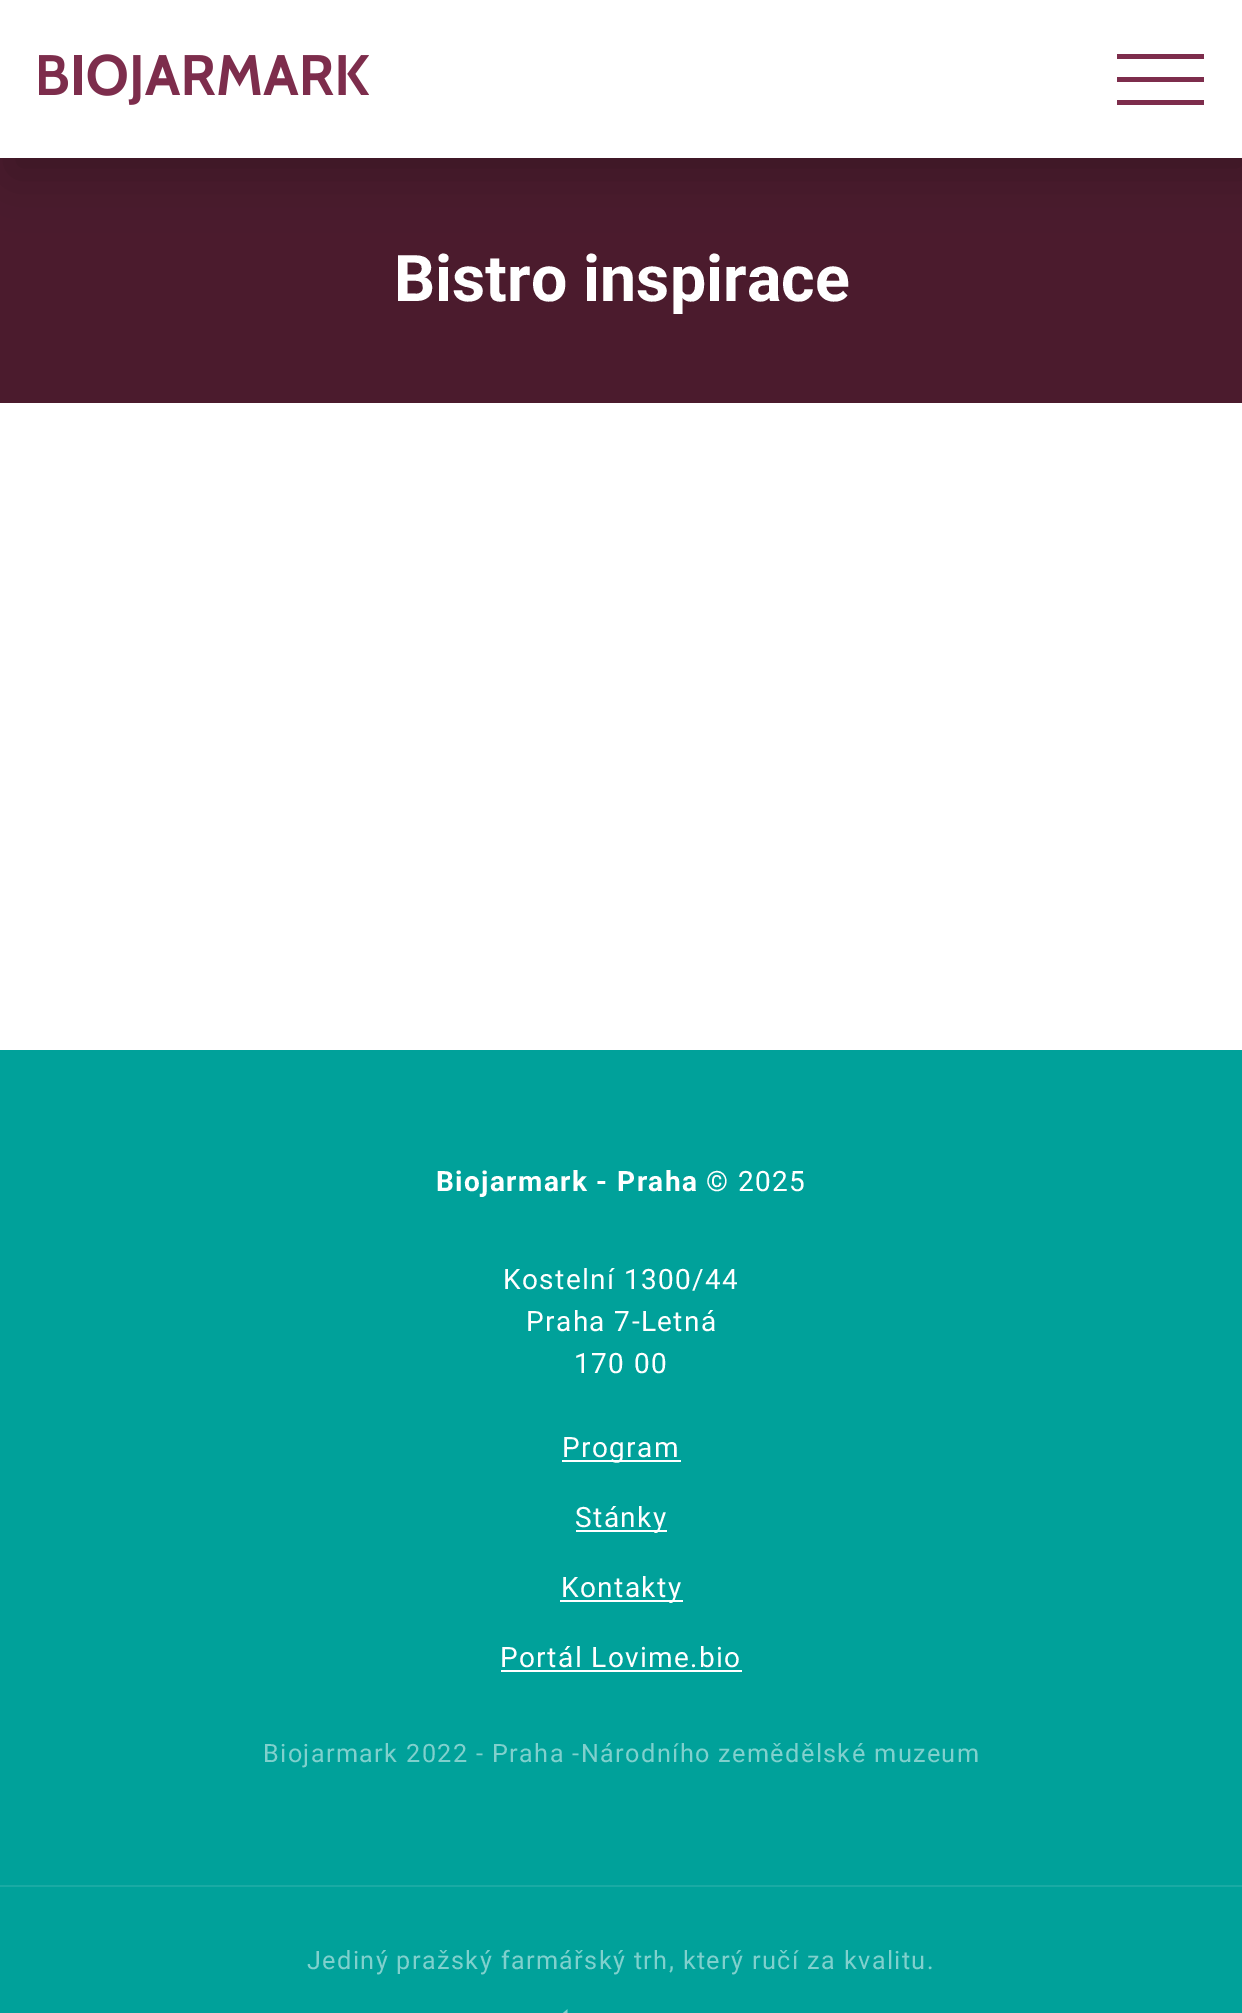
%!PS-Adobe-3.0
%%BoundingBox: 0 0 1242 2013
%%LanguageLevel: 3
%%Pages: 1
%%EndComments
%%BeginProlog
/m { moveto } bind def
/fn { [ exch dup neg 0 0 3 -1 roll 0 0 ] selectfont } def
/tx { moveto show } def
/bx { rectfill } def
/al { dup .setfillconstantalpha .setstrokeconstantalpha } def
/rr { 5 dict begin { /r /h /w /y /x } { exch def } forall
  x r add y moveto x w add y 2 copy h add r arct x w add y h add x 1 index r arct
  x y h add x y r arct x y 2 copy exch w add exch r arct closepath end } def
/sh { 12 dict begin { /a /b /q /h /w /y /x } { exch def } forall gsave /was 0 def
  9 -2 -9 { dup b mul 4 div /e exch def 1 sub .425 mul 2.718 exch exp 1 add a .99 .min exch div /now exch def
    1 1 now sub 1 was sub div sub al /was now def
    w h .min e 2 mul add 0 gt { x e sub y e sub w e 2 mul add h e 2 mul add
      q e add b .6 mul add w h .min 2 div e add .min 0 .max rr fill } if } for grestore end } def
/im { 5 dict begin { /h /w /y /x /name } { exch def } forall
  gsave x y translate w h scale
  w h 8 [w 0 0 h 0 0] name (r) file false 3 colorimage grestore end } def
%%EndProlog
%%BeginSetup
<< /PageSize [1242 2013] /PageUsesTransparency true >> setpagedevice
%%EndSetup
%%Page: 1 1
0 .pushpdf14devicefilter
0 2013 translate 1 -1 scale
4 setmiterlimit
1 setgray
0 0 1242 2013 bx
0.294 0.106 0.176 setrgbcolor
0 158 1242 245 bx
0 setgray
9 18 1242 157 0 26 0.19 sh
1 setgray
0 0 1242 158 bx
(image0.raw) 39 54 330 51 im
0.49 0.176 0.298 setrgbcolor
1117 54 87 5 bx
1117 77 87 5 bx
1117 100 87 5 bx
/Roboto-Bold 64.5 fn
1 setgray
(Bistro inspirace) 394 301 tx
0 0.631 0.604 setrgbcolor
0 1050 1242 963 bx
/Roboto-Bold 28 fn
1 setgray
436 1191 m 1.4 0 (Biojarmark - Praha) ashow
/Roboto-Regular 28 fn
706 1191 m 1.4 0 (© 2025) ashow
503 1289 m 1.4 0 (Kostelní 1300/44) ashow
526 1331 m 1.4 0 (Praha 7-Letná) ashow
574 1373 m 1.4 0 (170 00) ashow
562 1460 119 2 bx
562 1457 m 1.4 0 (Program) ashow
576 1530 91 2 bx
575 1527 m 1.4 0 (Stánky) ashow
560 1600 123 2 bx
561 1597 m 1.4 0 (Kontakty) ashow
500 1667 m 1.4 0 (Portál Lovime.bio) ashow
501 1670 241 2 bx
/Roboto-Regular 25.2 fn
0.502 0.816 0.804 setrgbcolor
263 1762 m 1.4 0 (Biojarmark 2022 - Praha -Národního zemědělské muzeum) ashow
0.102 0.667 0.643 setrgbcolor
0 1885 1242 2 bx
0.502 0.816 0.804 setrgbcolor
307 1969 m 1.4 0 (Jediný pražský farmářský trh, který ručí za kvalitu.) ashow
(image1.raw) 563 2009 5 4 im
.poppdf14devicefilter showpage
%%EOF
